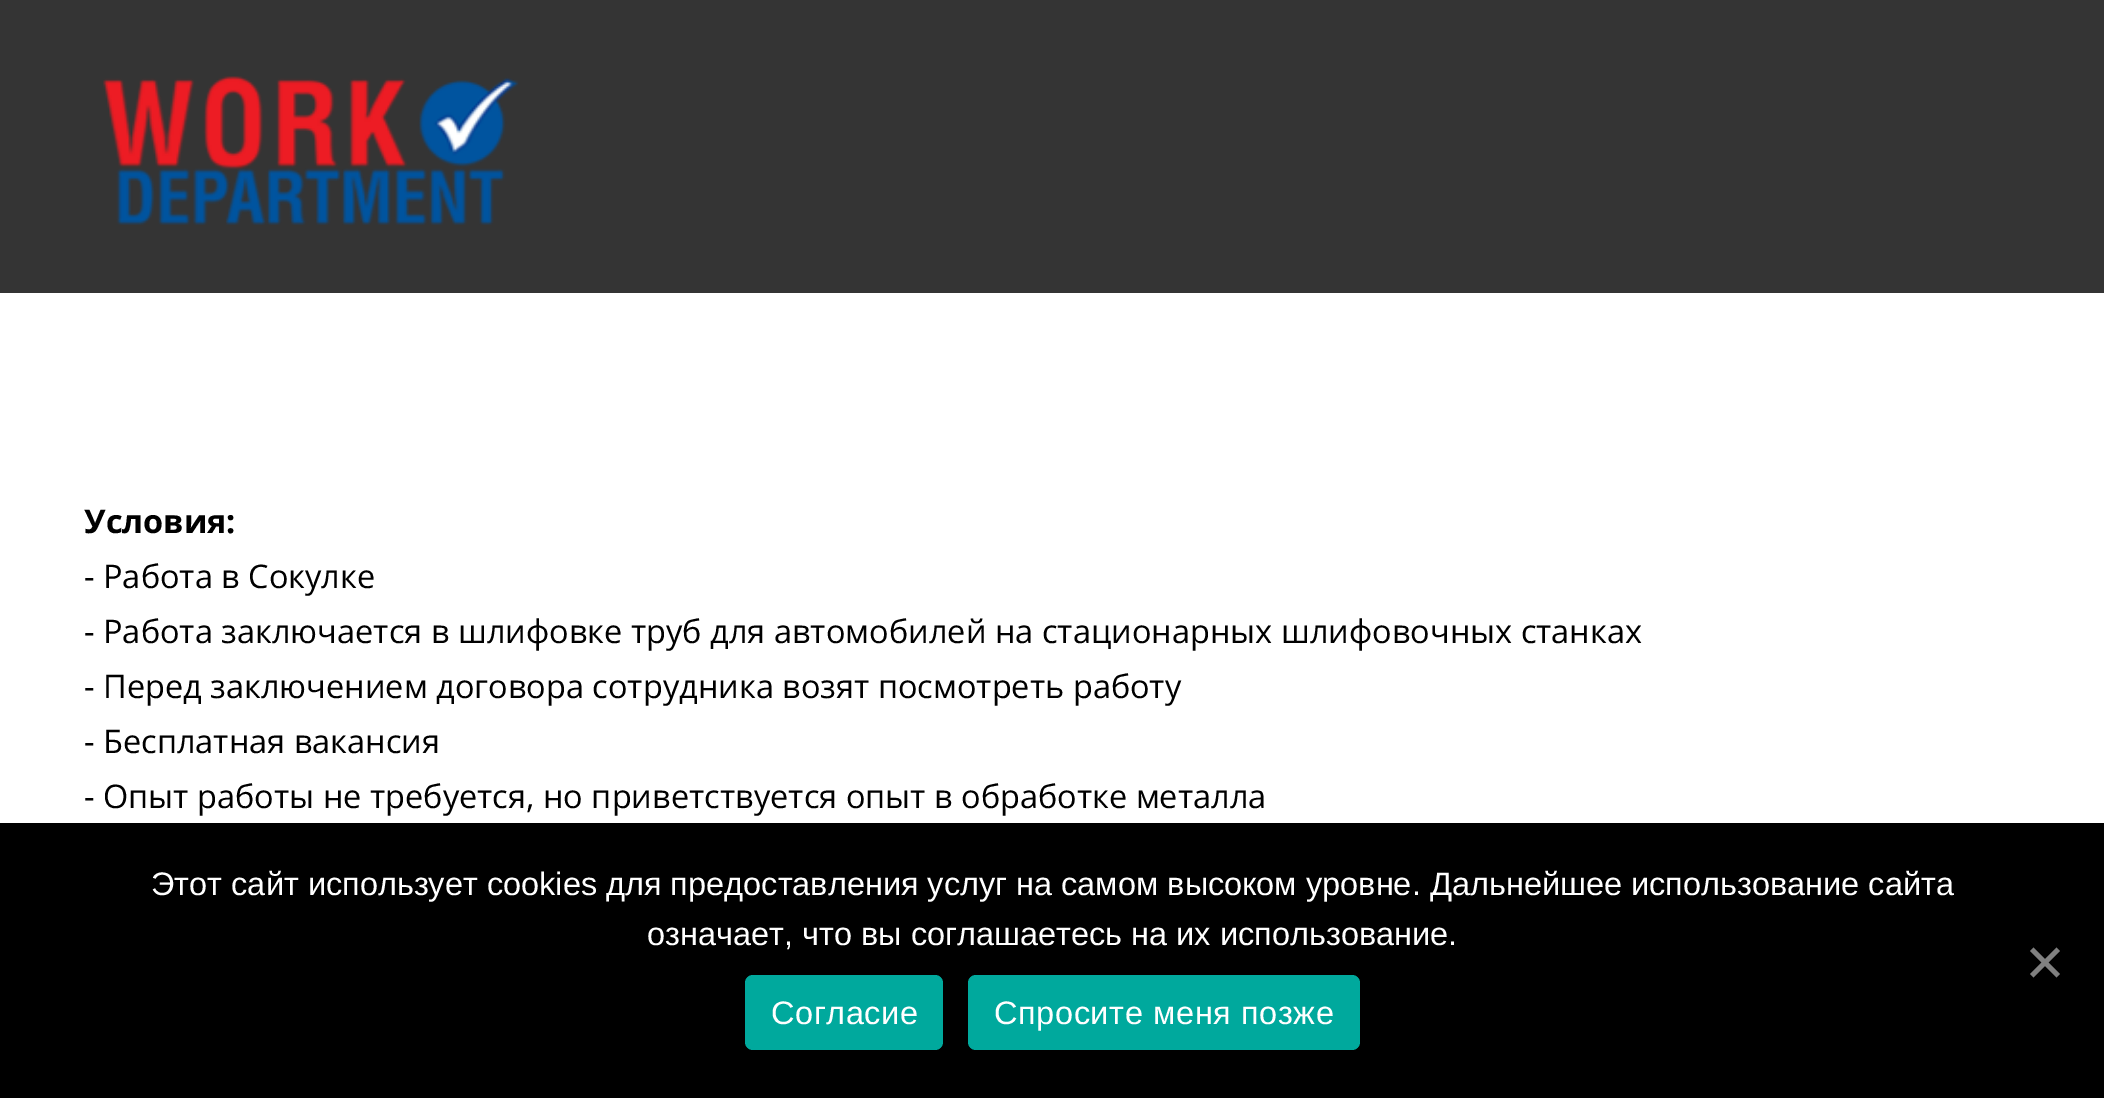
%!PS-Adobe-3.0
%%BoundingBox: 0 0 2104 1098
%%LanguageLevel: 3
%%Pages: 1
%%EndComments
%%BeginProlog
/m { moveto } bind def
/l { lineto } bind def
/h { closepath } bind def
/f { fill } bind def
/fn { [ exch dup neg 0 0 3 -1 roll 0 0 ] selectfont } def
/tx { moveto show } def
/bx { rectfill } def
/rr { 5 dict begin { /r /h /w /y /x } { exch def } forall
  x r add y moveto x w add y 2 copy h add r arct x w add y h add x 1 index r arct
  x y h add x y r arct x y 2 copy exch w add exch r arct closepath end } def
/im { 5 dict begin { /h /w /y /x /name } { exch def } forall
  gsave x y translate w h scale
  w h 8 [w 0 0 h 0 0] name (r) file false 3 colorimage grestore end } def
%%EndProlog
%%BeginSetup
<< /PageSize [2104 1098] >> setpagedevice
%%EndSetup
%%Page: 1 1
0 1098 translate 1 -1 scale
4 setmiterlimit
1 setgray
0 0 2104 1098 bx
0.204 setgray
0 0 2104 293 bx
(image0.raw) 103 76 416 149 im
/OpenSans-Bold 32.5 fn
0 setgray
(Условия:) 84 533 tx
/OpenSans-Regular 32.5 fn
(- Работа в Сокулке) 84 588 tx
(- Работа заключается в шлифовке труб для автомобилей на стационарных шлифовочных станках) 84 643 tx
(- Перед заключением договора сотрудника возят посмотреть работу) 84 698 tx
(- Бесплатная вакансия) 84 753 tx
(- Опыт работы не требуется, но приветствуется опыт в обработке металла) 84 808 tx
0 823 2104 275 bx
/LiberationSans-Regular 32.5 fn
1 setgray
(Этот сайт использует cookies для предоставления услуг на самом высоком уровне. Дальнейшее использование сайта) 151 895 tx
(означает, что вы соглашаетесь на их использование.) 647 945 tx
0.502 setgray
2056.5 947.5 m 2060 951 l 2033.5 977.5 l 2030 974 l h f
2030 951 m 2033.5 947.5 l 2060 974 l 2056.5 977.5 l h f
0 0.663 0.616 setrgbcolor
745 975 198 75 8 rr f
1 setgray
771 1024 m 0.6 0 (Согласие) ashow
0 0.663 0.616 setrgbcolor
968 975 392 75 8 rr f
1 setgray
994 1024 m 0.6 0 (Спросите меня позже) ashow
showpage
%%EOF
